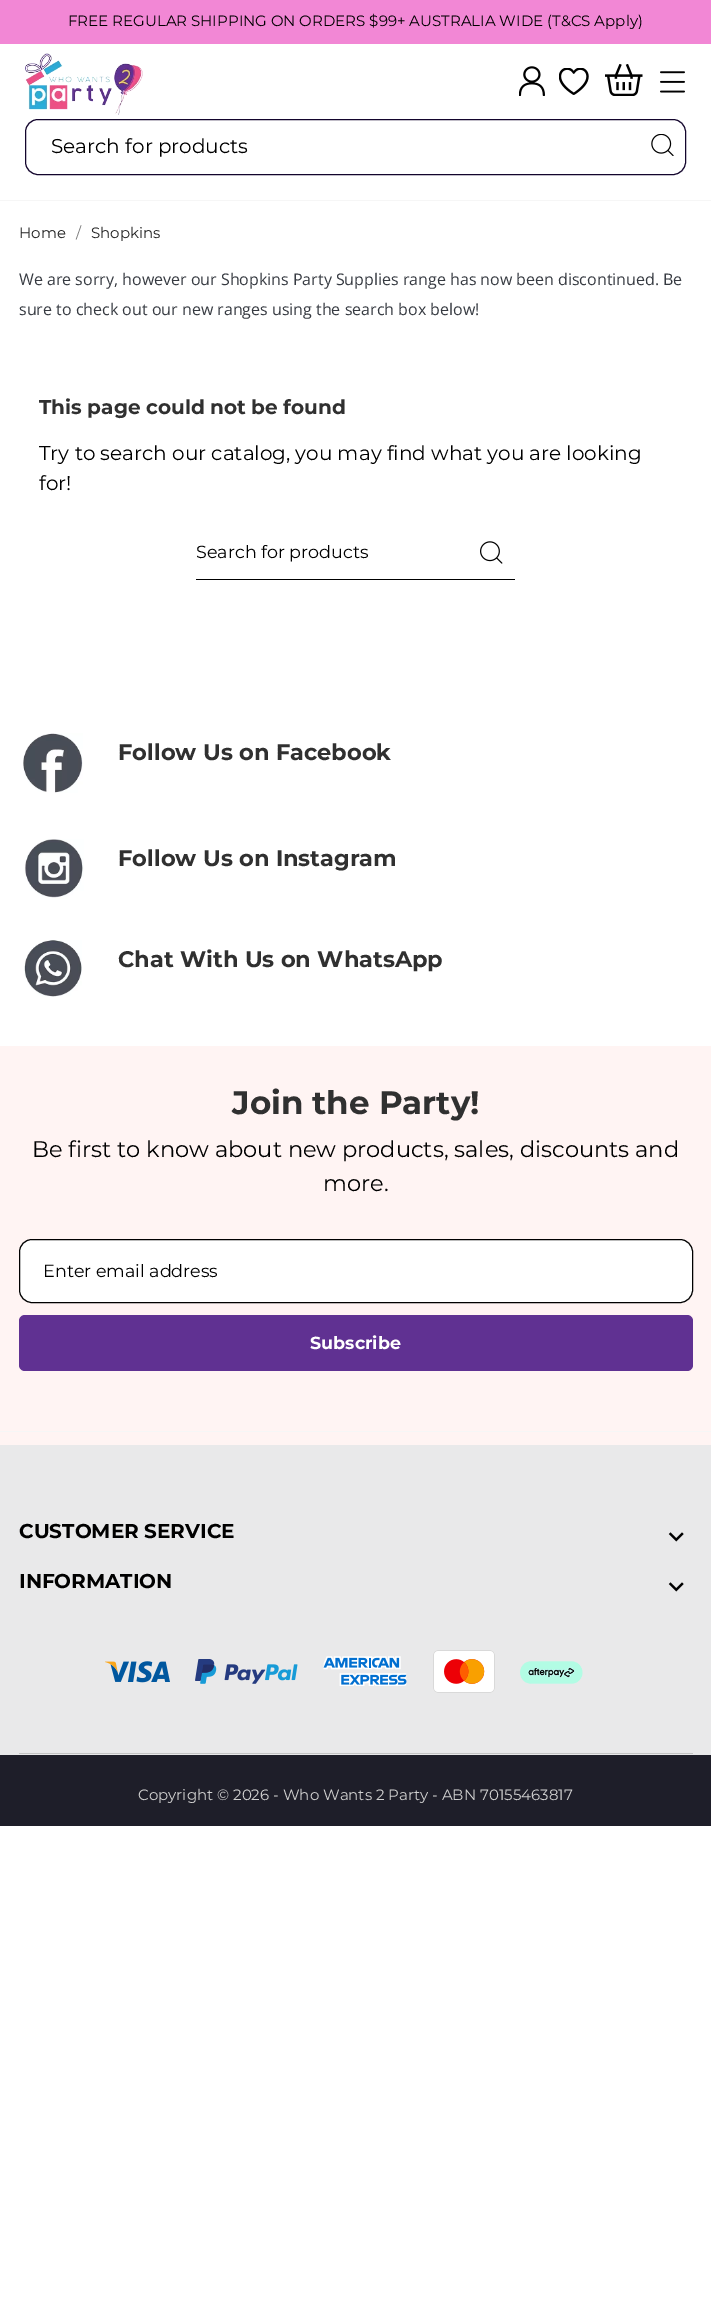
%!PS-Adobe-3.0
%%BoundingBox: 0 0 711 2316
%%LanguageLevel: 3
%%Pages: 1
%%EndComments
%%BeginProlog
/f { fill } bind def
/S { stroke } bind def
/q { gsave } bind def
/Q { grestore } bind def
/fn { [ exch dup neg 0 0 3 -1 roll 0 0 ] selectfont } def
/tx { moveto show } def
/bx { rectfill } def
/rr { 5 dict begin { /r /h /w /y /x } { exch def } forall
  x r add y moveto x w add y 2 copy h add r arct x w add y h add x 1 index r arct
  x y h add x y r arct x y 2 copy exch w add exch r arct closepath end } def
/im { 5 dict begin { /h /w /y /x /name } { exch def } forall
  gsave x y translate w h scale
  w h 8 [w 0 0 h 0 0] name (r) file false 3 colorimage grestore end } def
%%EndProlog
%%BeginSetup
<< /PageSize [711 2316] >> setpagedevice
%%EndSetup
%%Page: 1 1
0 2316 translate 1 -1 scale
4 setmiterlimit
1 setgray
0 0 711 2316 bx
0.949 0.529 0.835 setrgbcolor
0 0 711 44 bx
/Montserrat-Thin 15 fn
0 setgray
(FREE REGULAR SHIPPING ON ORDERS $99+ AUSTRALIA WIDE \(T&CS Apply\)) 68 26 tx
(image0.raw) 25 53 118 62 im
(image1.raw) 519 66 26 30 im
(image2.raw) 559 68 30 27 im
(image3.raw) 605 64 38 32 im
(image4.raw) 660 71 25 22 im
0.965 setgray
0 200 711 1 bx
0.075 0.02 0.176 setrgbcolor
25.5 119.5 660 55 12.5 rr S
/Montserrat-Thin 20 fn
0 setgray
(Search for products) 51 153 tx
(image5.raw) 651 134 23 22 im
/Montserrat-Thin 15 fn
0.137 setgray
(Home) 19 238 tx
0.478 setgray
(/) 76 238 tx
0.137 setgray
(Shopkins) 91 238 tx
/OpenSans-Regular 16 fn
0.212 0.227 0.255 setrgbcolor
(We are sorry, however our Shopkins Party Supplies range has now been discontinued. Be) 19 285 tx
(sure to check out our new ranges using the search box below!) 19 315 tx
/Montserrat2-Thin 20 fn
0.188 setgray
(This page could not be found) 39 414 tx
/Montserrat-Thin 20 fn
0 setgray
(Try to search our catalog, you may find what you are looking) 39 460 tx
(for!) 39 490 tx
196 579 319 1 bx
/Montserrat-Thin 17.5 fn
(Search for products) 196 558 tx
(image6.raw) 480 541 23 23 im
(image7.raw) 23 733 60 60 im
/Montserrat2-Thin 22.5 fn
0.188 setgray
(Follow Us on Facebook) 118 760 tx
(image8.raw) 24 839 60 60 im
(Follow Us on Instagram) 118 866 tx
(image9.raw) 24 940 58 57 im
(Chat With Us on WhatsApp) 118 967 tx
1 0.957 0.953 setrgbcolor
0 1046 711 399 bx
0.965 setgray
0 1431 711 1 bx
/Montserrat2-Thin 32.5 fn
0.188 setgray
(Join the Party!) 232 1114 tx
/Montserrat-Thin 22.5 fn
0 setgray
(Be first to know about new products, sales, discounts and) 32 1157 tx
(more.) 323 1191 tx
1 setgray
19.5 1239.5 673 63 12.5 rr q f Q
0 setgray
S
/Montserrat-Thin 17.5 fn
(Enter email address) 43 1277 tx
0.376 0.192 0.573 setrgbcolor
19 1315 674 56 6 rr f
/Montserrat2-Thin 17.5 fn
1 setgray
(Subscribe) 310 1349 tx
0.914 0.914 0.918 setrgbcolor
0 1445 711 310 bx
/Montserrat2-Thin 20 fn
0 setgray
(CUSTOMER SERVICE) 19 1538 tx
(image10.raw) 668 1532 16 10 im
(INFORMATION) 19 1588 tx
(image10.raw) 668 1582 16 10 im
(image11.raw) 105 1661 65 22 im
(image12.raw) 195 1659 103 25 im
(image13.raw) 323 1656 84 30 im
(image14.raw) 433 1650 62 43 im
(image15.raw) 520 1661 63 23 im
0.769 setgray
19 1753 674 1 bx
0.118 0.118 0.161 setrgbcolor
0 1755 711 71 bx
/Montserrat-Thin 15 fn
0.816 setgray
(Copyright © 2026 - Who Wants 2 Party - ABN 70155463817) 138 1800 tx
showpage
%%EOF
